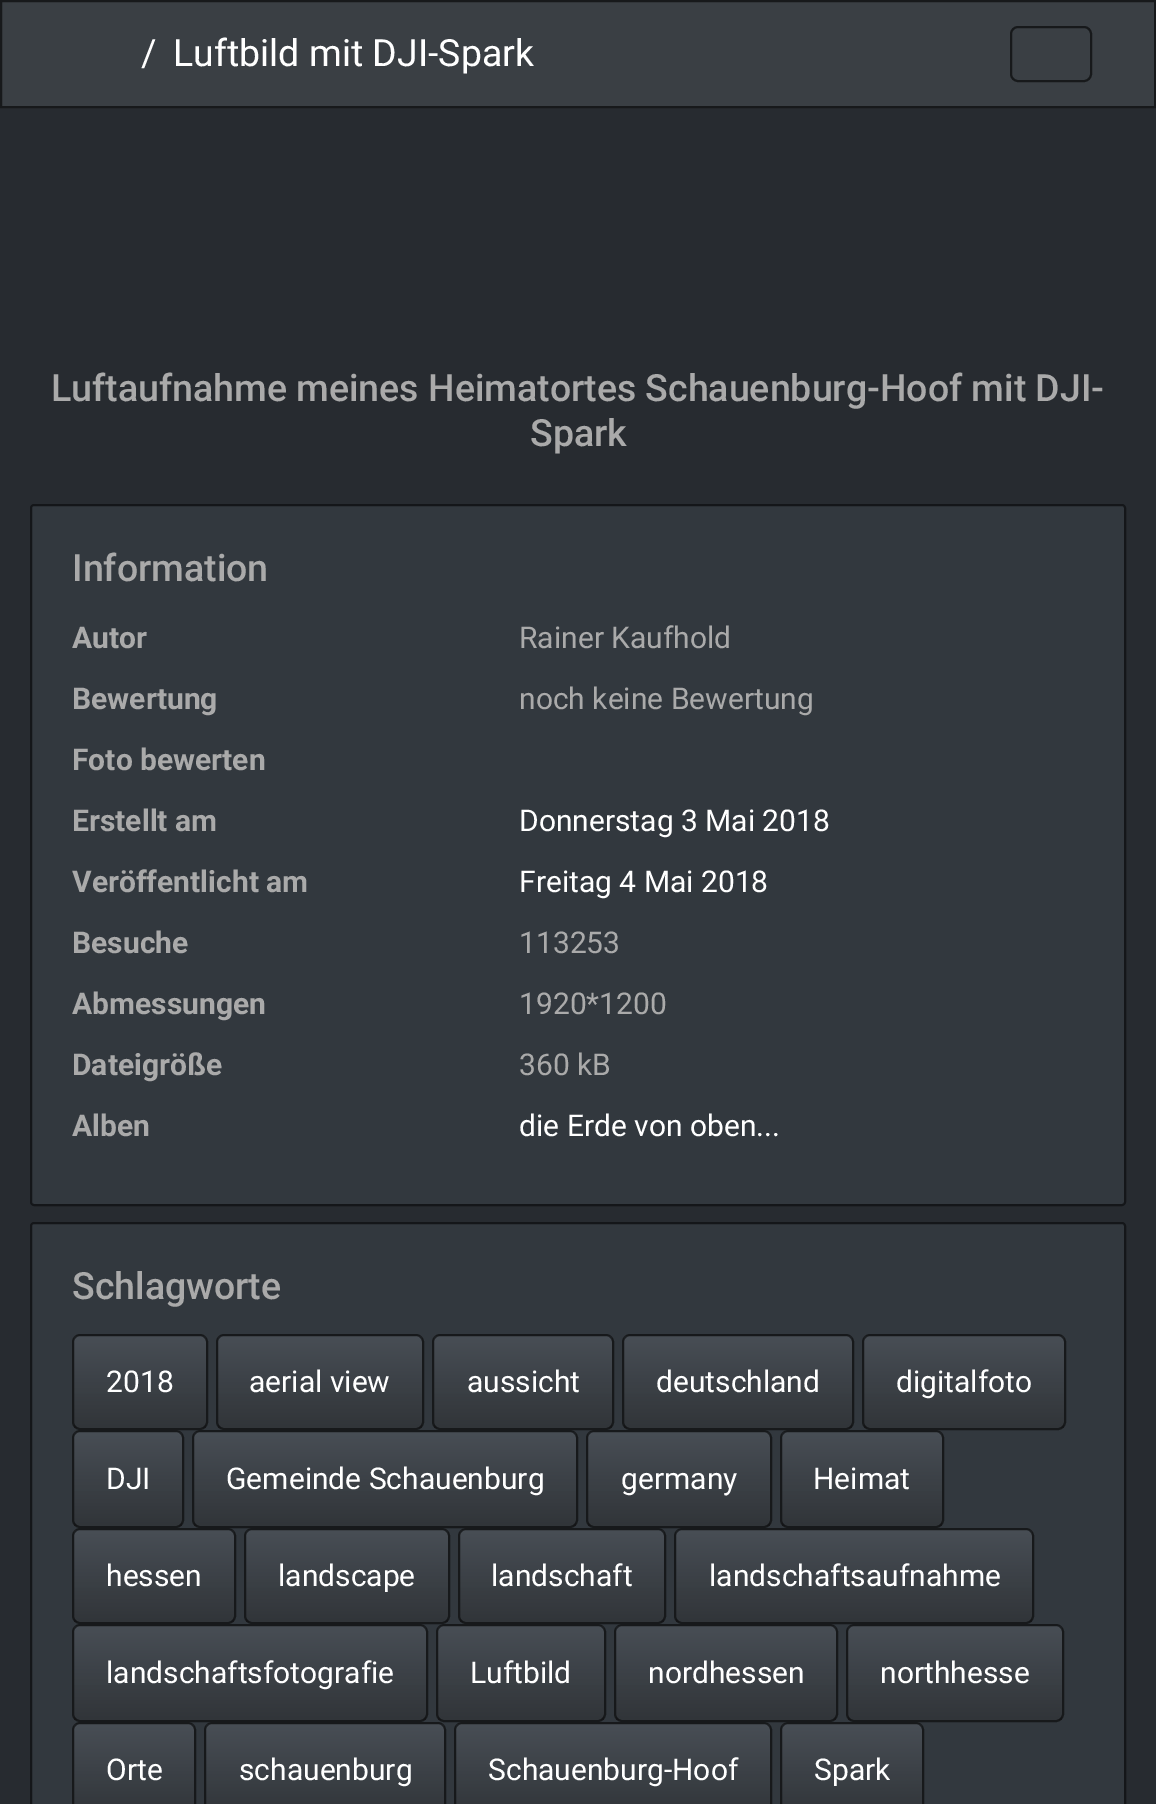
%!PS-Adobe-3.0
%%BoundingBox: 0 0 1156 1804
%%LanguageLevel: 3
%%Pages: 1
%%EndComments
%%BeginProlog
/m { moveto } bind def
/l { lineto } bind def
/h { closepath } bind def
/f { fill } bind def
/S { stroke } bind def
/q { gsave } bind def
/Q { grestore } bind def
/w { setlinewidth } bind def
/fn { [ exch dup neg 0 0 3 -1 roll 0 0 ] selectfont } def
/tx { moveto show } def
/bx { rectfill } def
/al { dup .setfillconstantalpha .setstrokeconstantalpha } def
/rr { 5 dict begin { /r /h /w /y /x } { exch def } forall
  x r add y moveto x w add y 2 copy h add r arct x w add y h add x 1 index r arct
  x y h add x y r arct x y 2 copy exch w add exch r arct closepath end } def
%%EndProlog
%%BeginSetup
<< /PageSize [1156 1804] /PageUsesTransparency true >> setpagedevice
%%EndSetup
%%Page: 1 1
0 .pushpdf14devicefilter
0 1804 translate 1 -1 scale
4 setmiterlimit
0.153 0.169 0.188 setrgbcolor
0 0 1156 1804 bx
0.227 0.247 0.267 setrgbcolor
1 1 m 1155 1 l 1155 107 l 1 107 l h q f Q
0.09 0.098 0.106 setrgbcolor
2 w
S
/Roboto-Regular 37.5 fn
1 setgray
(/) 141 66 tx
(Luftbild mit DJI-Spark) 173 66 tx
0.09 0.098 0.106 setrgbcolor
1011 27 80 54 7 rr S
/Roboto-Medium 37.5 fn
0.667 setgray
(Luftaufnahme meines Heimatortes Schauenburg-Hoof mit DJI-) 51 401 tx
(Spark) 530 446 tx
0.196 0.22 0.243 setrgbcolor
30 504 1096 702 4 rr f
0.6 al
0 setgray
31 505 1094 700 3 rr S
1 al
0.667 setgray
(Information) 72 581 tx
/Roboto-Bold 30 fn
(Autor) 72 648 tx
/Roboto-Regular 30 fn
(Rainer Kaufhold) 519 648 tx
/Roboto-Bold 30 fn
(Bewertung) 72 709 tx
/Roboto-Regular 30 fn
(noch keine Bewertung) 519 709 tx
/Roboto-Bold 30 fn
(Foto bewerten) 72 770 tx
(Erstellt am) 72 831 tx
/Roboto-Regular 30 fn
1 setgray
(Donnerstag 3 Mai 2018) 519 831 tx
/Roboto-Bold 30 fn
0.667 setgray
(Veröffentlicht am) 72 892 tx
/Roboto-Regular 30 fn
1 setgray
(Freitag 4 Mai 2018) 519 892 tx
/Roboto-Bold 30 fn
0.667 setgray
(Besuche) 72 953 tx
/Roboto-Regular 30 fn
(113253) 519 953 tx
/Roboto-Bold 30 fn
(Abmessungen) 72 1014 tx
/Roboto-Regular 30 fn
(1920*1200) 519 1014 tx
/Roboto-Bold 30 fn
(Dateigröße) 72 1075 tx
/Roboto-Regular 30 fn
(360 kB) 519 1075 tx
/Roboto-Bold 30 fn
(Alben) 72 1136 tx
/Roboto-Regular 30 fn
1 setgray
(die Erde von oben...) 519 1136 tx
0.196 0.22 0.243 setrgbcolor
30 1222 1096 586 4 rr f
0.6 al
0 setgray
31 1223 1094 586 3 rr S
/Roboto-Medium 37.5 fn
1 al
0.667 setgray
(Schlagworte) 72 1299 tx
0.227 0.247 0.267 setrgbcolor
72 1334 136 96 8 rr f
q
72 1334 136 96 8 rr clip newpath
q 74 1336 m 206 1336 l 206 1428 l 74 1428 l h clip newpath
<< /ShadingType 2 /ColorSpace /DeviceRGB /Coords [140 1336 140 1428] /Extend [true true] /Function << /FunctionType 3 /Domain [0 1] /Functions [<< /FunctionType 2 /Domain [0 1] /C0 [0.282 0.306 0.333] /C1 [0.227 0.247 0.267] /N 1 >> << /FunctionType 2 /Domain [0 1] /C0 [0.227 0.247 0.267] /C1 [0.192 0.208 0.224] /N 1 >>] /Bounds [0.6] /Encode [0 1 0 1] >> >> shfill Q
Q
0.6 al
0 setgray
73 1335 134 94 7 rr S
/Roboto-Regular 30 fn
1 al
1 setgray
(2018) 106 1392 tx
0.227 0.247 0.267 setrgbcolor
216 1334 208 96 8 rr f
q
216 1334 208 96 8 rr clip newpath
q 218 1336 m 422 1336 l 422 1428 l 218 1428 l h clip newpath
<< /ShadingType 2 /ColorSpace /DeviceRGB /Coords [320 1336 320 1428] /Extend [true true] /Function << /FunctionType 3 /Domain [0 1] /Functions [<< /FunctionType 2 /Domain [0 1] /C0 [0.282 0.306 0.333] /C1 [0.227 0.247 0.267] /N 1 >> << /FunctionType 2 /Domain [0 1] /C0 [0.227 0.247 0.267] /C1 [0.192 0.208 0.224] /N 1 >>] /Bounds [0.6] /Encode [0 1 0 1] >> >> shfill Q
Q
0.6 al
0 setgray
217 1335 206 94 7 rr S
1 al
1 setgray
(aerial view) 249 1392 tx
0.227 0.247 0.267 setrgbcolor
432 1334 182 96 8 rr f
q
432 1334 182 96 8 rr clip newpath
q 434 1336 m 612 1336 l 612 1428 l 434 1428 l h clip newpath
<< /ShadingType 2 /ColorSpace /DeviceRGB /Coords [523 1336 523 1428] /Extend [true true] /Function << /FunctionType 3 /Domain [0 1] /Functions [<< /FunctionType 2 /Domain [0 1] /C0 [0.282 0.306 0.333] /C1 [0.227 0.247 0.267] /N 1 >> << /FunctionType 2 /Domain [0 1] /C0 [0.227 0.247 0.267] /C1 [0.192 0.208 0.224] /N 1 >>] /Bounds [0.6] /Encode [0 1 0 1] >> >> shfill Q
Q
0.6 al
0 setgray
433 1335 180 94 7 rr S
1 al
1 setgray
(aussicht) 467 1392 tx
0.227 0.247 0.267 setrgbcolor
622 1334 232 96 8 rr f
q
622 1334 232 96 8 rr clip newpath
q 624 1336 m 852 1336 l 852 1428 l 624 1428 l h clip newpath
<< /ShadingType 2 /ColorSpace /DeviceRGB /Coords [738 1336 738 1428] /Extend [true true] /Function << /FunctionType 3 /Domain [0 1] /Functions [<< /FunctionType 2 /Domain [0 1] /C0 [0.282 0.306 0.333] /C1 [0.227 0.247 0.267] /N 1 >> << /FunctionType 2 /Domain [0 1] /C0 [0.227 0.247 0.267] /C1 [0.192 0.208 0.224] /N 1 >>] /Bounds [0.6] /Encode [0 1 0 1] >> >> shfill Q
Q
0.6 al
0 setgray
623 1335 230 94 7 rr S
1 al
1 setgray
(deutschland) 656 1392 tx
0.227 0.247 0.267 setrgbcolor
862 1334 204 96 8 rr f
q
862 1334 204 96 8 rr clip newpath
q 864 1336 m 1064 1336 l 1064 1428 l 864 1428 l h clip newpath
<< /ShadingType 2 /ColorSpace /DeviceRGB /Coords [964 1336 964 1428] /Extend [true true] /Function << /FunctionType 3 /Domain [0 1] /Functions [<< /FunctionType 2 /Domain [0 1] /C0 [0.282 0.306 0.333] /C1 [0.227 0.247 0.267] /N 1 >> << /FunctionType 2 /Domain [0 1] /C0 [0.227 0.247 0.267] /C1 [0.192 0.208 0.224] /N 1 >>] /Bounds [0.6] /Encode [0 1 0 1] >> >> shfill Q
Q
0.6 al
0 setgray
863 1335 202 94 7 rr S
1 al
1 setgray
(digitalfoto) 896 1392 tx
0.227 0.247 0.267 setrgbcolor
72 1430 112 98 8 rr f
q
72 1430 112 98 8 rr clip newpath
q 74 1432 m 182 1432 l 182 1526 l 74 1526 l h clip newpath
<< /ShadingType 2 /ColorSpace /DeviceRGB /Coords [128 1432 128 1526] /Extend [true true] /Function << /FunctionType 3 /Domain [0 1] /Functions [<< /FunctionType 2 /Domain [0 1] /C0 [0.282 0.306 0.333] /C1 [0.227 0.247 0.267] /N 1 >> << /FunctionType 2 /Domain [0 1] /C0 [0.227 0.247 0.267] /C1 [0.192 0.208 0.224] /N 1 >>] /Bounds [0.6] /Encode [0 1 0 1] >> >> shfill Q
Q
0.6 al
0 setgray
73 1431 110 96 7 rr S
1 al
1 setgray
(DJI) 106 1489 tx
0.227 0.247 0.267 setrgbcolor
192 1430 386 98 8 rr f
q
192 1430 386 98 8 rr clip newpath
q 194 1432 m 576 1432 l 576 1526 l 194 1526 l h clip newpath
<< /ShadingType 2 /ColorSpace /DeviceRGB /Coords [385 1432 385 1526] /Extend [true true] /Function << /FunctionType 3 /Domain [0 1] /Functions [<< /FunctionType 2 /Domain [0 1] /C0 [0.282 0.306 0.333] /C1 [0.227 0.247 0.267] /N 1 >> << /FunctionType 2 /Domain [0 1] /C0 [0.227 0.247 0.267] /C1 [0.192 0.208 0.224] /N 1 >>] /Bounds [0.6] /Encode [0 1 0 1] >> >> shfill Q
Q
0.6 al
0 setgray
193 1431 384 96 7 rr S
1 al
1 setgray
(Gemeinde Schauenburg) 226 1489 tx
0.227 0.247 0.267 setrgbcolor
586 1430 186 98 8 rr f
q
586 1430 186 98 8 rr clip newpath
q 588 1432 m 770 1432 l 770 1526 l 588 1526 l h clip newpath
<< /ShadingType 2 /ColorSpace /DeviceRGB /Coords [679 1432 679 1526] /Extend [true true] /Function << /FunctionType 3 /Domain [0 1] /Functions [<< /FunctionType 2 /Domain [0 1] /C0 [0.282 0.306 0.333] /C1 [0.227 0.247 0.267] /N 1 >> << /FunctionType 2 /Domain [0 1] /C0 [0.227 0.247 0.267] /C1 [0.192 0.208 0.224] /N 1 >>] /Bounds [0.6] /Encode [0 1 0 1] >> >> shfill Q
Q
0.6 al
0 setgray
587 1431 184 96 7 rr S
1 al
1 setgray
(germany) 621 1489 tx
0.227 0.247 0.267 setrgbcolor
780 1430 164 98 8 rr f
q
780 1430 164 98 8 rr clip newpath
q 782 1432 m 942 1432 l 942 1526 l 782 1526 l h clip newpath
<< /ShadingType 2 /ColorSpace /DeviceRGB /Coords [862 1432 862 1526] /Extend [true true] /Function << /FunctionType 3 /Domain [0 1] /Functions [<< /FunctionType 2 /Domain [0 1] /C0 [0.282 0.306 0.333] /C1 [0.227 0.247 0.267] /N 1 >> << /FunctionType 2 /Domain [0 1] /C0 [0.227 0.247 0.267] /C1 [0.192 0.208 0.224] /N 1 >>] /Bounds [0.6] /Encode [0 1 0 1] >> >> shfill Q
Q
0.6 al
0 setgray
781 1431 162 96 7 rr S
1 al
1 setgray
(Heimat) 813 1489 tx
0.227 0.247 0.267 setrgbcolor
72 1528 164 96 8 rr f
q
72 1528 164 96 8 rr clip newpath
q 74 1530 m 234 1530 l 234 1622 l 74 1622 l h clip newpath
<< /ShadingType 2 /ColorSpace /DeviceRGB /Coords [154 1530 154 1622] /Extend [true true] /Function << /FunctionType 3 /Domain [0 1] /Functions [<< /FunctionType 2 /Domain [0 1] /C0 [0.282 0.306 0.333] /C1 [0.227 0.247 0.267] /N 1 >> << /FunctionType 2 /Domain [0 1] /C0 [0.227 0.247 0.267] /C1 [0.192 0.208 0.224] /N 1 >>] /Bounds [0.6] /Encode [0 1 0 1] >> >> shfill Q
Q
0.6 al
0 setgray
73 1529 162 94 7 rr S
1 al
1 setgray
(hessen) 106 1586 tx
0.227 0.247 0.267 setrgbcolor
244 1528 206 96 8 rr f
q
244 1528 206 96 8 rr clip newpath
q 246 1530 m 448 1530 l 448 1622 l 246 1622 l h clip newpath
<< /ShadingType 2 /ColorSpace /DeviceRGB /Coords [347 1530 347 1622] /Extend [true true] /Function << /FunctionType 3 /Domain [0 1] /Functions [<< /FunctionType 2 /Domain [0 1] /C0 [0.282 0.306 0.333] /C1 [0.227 0.247 0.267] /N 1 >> << /FunctionType 2 /Domain [0 1] /C0 [0.227 0.247 0.267] /C1 [0.192 0.208 0.224] /N 1 >>] /Bounds [0.6] /Encode [0 1 0 1] >> >> shfill Q
Q
0.6 al
0 setgray
245 1529 204 94 7 rr S
1 al
1 setgray
(landscape) 278 1586 tx
0.227 0.247 0.267 setrgbcolor
458 1528 208 96 8 rr f
q
458 1528 208 96 8 rr clip newpath
q 460 1530 m 664 1530 l 664 1622 l 460 1622 l h clip newpath
<< /ShadingType 2 /ColorSpace /DeviceRGB /Coords [562 1530 562 1622] /Extend [true true] /Function << /FunctionType 3 /Domain [0 1] /Functions [<< /FunctionType 2 /Domain [0 1] /C0 [0.282 0.306 0.333] /C1 [0.227 0.247 0.267] /N 1 >> << /FunctionType 2 /Domain [0 1] /C0 [0.227 0.247 0.267] /C1 [0.192 0.208 0.224] /N 1 >>] /Bounds [0.6] /Encode [0 1 0 1] >> >> shfill Q
Q
0.6 al
0 setgray
459 1529 206 94 7 rr S
1 al
1 setgray
(landschaft) 491 1586 tx
0.227 0.247 0.267 setrgbcolor
674 1528 360 96 8 rr f
q
674 1528 360 96 8 rr clip newpath
q 676 1530 m 1032 1530 l 1032 1622 l 676 1622 l h clip newpath
<< /ShadingType 2 /ColorSpace /DeviceRGB /Coords [854 1530 854 1622] /Extend [true true] /Function << /FunctionType 3 /Domain [0 1] /Functions [<< /FunctionType 2 /Domain [0 1] /C0 [0.282 0.306 0.333] /C1 [0.227 0.247 0.267] /N 1 >> << /FunctionType 2 /Domain [0 1] /C0 [0.227 0.247 0.267] /C1 [0.192 0.208 0.224] /N 1 >>] /Bounds [0.6] /Encode [0 1 0 1] >> >> shfill Q
Q
0.6 al
0 setgray
675 1529 358 94 7 rr S
1 al
1 setgray
(landschaftsaufnahme) 709 1586 tx
0.227 0.247 0.267 setrgbcolor
72 1624 356 98 8 rr f
q
72 1624 356 98 8 rr clip newpath
q 74 1626 m 426 1626 l 426 1720 l 74 1720 l h clip newpath
<< /ShadingType 2 /ColorSpace /DeviceRGB /Coords [250 1626 250 1720] /Extend [true true] /Function << /FunctionType 3 /Domain [0 1] /Functions [<< /FunctionType 2 /Domain [0 1] /C0 [0.282 0.306 0.333] /C1 [0.227 0.247 0.267] /N 1 >> << /FunctionType 2 /Domain [0 1] /C0 [0.227 0.247 0.267] /C1 [0.192 0.208 0.224] /N 1 >>] /Bounds [0.6] /Encode [0 1 0 1] >> >> shfill Q
Q
0.6 al
0 setgray
73 1625 354 96 7 rr S
1 al
1 setgray
(landschaftsfotografie) 106 1683 tx
0.227 0.247 0.267 setrgbcolor
436 1624 170 98 8 rr f
q
436 1624 170 98 8 rr clip newpath
q 438 1626 m 604 1626 l 604 1720 l 438 1720 l h clip newpath
<< /ShadingType 2 /ColorSpace /DeviceRGB /Coords [521 1626 521 1720] /Extend [true true] /Function << /FunctionType 3 /Domain [0 1] /Functions [<< /FunctionType 2 /Domain [0 1] /C0 [0.282 0.306 0.333] /C1 [0.227 0.247 0.267] /N 1 >> << /FunctionType 2 /Domain [0 1] /C0 [0.227 0.247 0.267] /C1 [0.192 0.208 0.224] /N 1 >>] /Bounds [0.6] /Encode [0 1 0 1] >> >> shfill Q
Q
0.6 al
0 setgray
437 1625 168 96 7 rr S
1 al
1 setgray
(Luftbild) 470 1683 tx
0.227 0.247 0.267 setrgbcolor
614 1624 224 98 8 rr f
q
614 1624 224 98 8 rr clip newpath
q 616 1626 m 836 1626 l 836 1720 l 616 1720 l h clip newpath
<< /ShadingType 2 /ColorSpace /DeviceRGB /Coords [726 1626 726 1720] /Extend [true true] /Function << /FunctionType 3 /Domain [0 1] /Functions [<< /FunctionType 2 /Domain [0 1] /C0 [0.282 0.306 0.333] /C1 [0.227 0.247 0.267] /N 1 >> << /FunctionType 2 /Domain [0 1] /C0 [0.227 0.247 0.267] /C1 [0.192 0.208 0.224] /N 1 >>] /Bounds [0.6] /Encode [0 1 0 1] >> >> shfill Q
Q
0.6 al
0 setgray
615 1625 222 96 7 rr S
1 al
1 setgray
(nordhessen) 648 1683 tx
0.227 0.247 0.267 setrgbcolor
846 1624 218 98 8 rr f
q
846 1624 218 98 8 rr clip newpath
q 848 1626 m 1062 1626 l 1062 1720 l 848 1720 l h clip newpath
<< /ShadingType 2 /ColorSpace /DeviceRGB /Coords [955 1626 955 1720] /Extend [true true] /Function << /FunctionType 3 /Domain [0 1] /Functions [<< /FunctionType 2 /Domain [0 1] /C0 [0.282 0.306 0.333] /C1 [0.227 0.247 0.267] /N 1 >> << /FunctionType 2 /Domain [0 1] /C0 [0.227 0.247 0.267] /C1 [0.192 0.208 0.224] /N 1 >>] /Bounds [0.6] /Encode [0 1 0 1] >> >> shfill Q
Q
0.6 al
0 setgray
847 1625 216 96 7 rr S
1 al
1 setgray
(northhesse) 880 1683 tx
0.227 0.247 0.267 setrgbcolor
72 1722 124 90 8 rr f
q 74 1724 m 194 1724 l 194 1804 l 74 1804 l h clip newpath
<< /ShadingType 2 /ColorSpace /DeviceRGB /Coords [134 1724 134 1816] /Extend [true true] /Function << /FunctionType 3 /Domain [0 1] /Functions [<< /FunctionType 2 /Domain [0 1] /C0 [0.282 0.306 0.333] /C1 [0.227 0.247 0.267] /N 1 >> << /FunctionType 2 /Domain [0 1] /C0 [0.227 0.247 0.267] /C1 [0.192 0.208 0.224] /N 1 >>] /Bounds [0.6] /Encode [0 1 0 1] >> >> shfill Q
0.6 al
0 setgray
73 1723 122 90 7 rr S
1 al
1 setgray
(Orte) 106 1780 tx
0.227 0.247 0.267 setrgbcolor
204 1722 242 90 8 rr f
q 206 1724 m 444 1724 l 444 1804 l 206 1804 l h clip newpath
<< /ShadingType 2 /ColorSpace /DeviceRGB /Coords [325 1724 325 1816] /Extend [true true] /Function << /FunctionType 3 /Domain [0 1] /Functions [<< /FunctionType 2 /Domain [0 1] /C0 [0.282 0.306 0.333] /C1 [0.227 0.247 0.267] /N 1 >> << /FunctionType 2 /Domain [0 1] /C0 [0.227 0.247 0.267] /C1 [0.192 0.208 0.224] /N 1 >>] /Bounds [0.6] /Encode [0 1 0 1] >> >> shfill Q
0.6 al
0 setgray
205 1723 240 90 7 rr S
1 al
1 setgray
(schauenburg) 239 1780 tx
0.227 0.247 0.267 setrgbcolor
454 1722 318 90 8 rr f
q 456 1724 m 770 1724 l 770 1804 l 456 1804 l h clip newpath
<< /ShadingType 2 /ColorSpace /DeviceRGB /Coords [613 1724 613 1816] /Extend [true true] /Function << /FunctionType 3 /Domain [0 1] /Functions [<< /FunctionType 2 /Domain [0 1] /C0 [0.282 0.306 0.333] /C1 [0.227 0.247 0.267] /N 1 >> << /FunctionType 2 /Domain [0 1] /C0 [0.227 0.247 0.267] /C1 [0.192 0.208 0.224] /N 1 >>] /Bounds [0.6] /Encode [0 1 0 1] >> >> shfill Q
0.6 al
0 setgray
455 1723 316 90 7 rr S
1 al
1 setgray
(Schauenburg-Hoof) 488 1780 tx
0.227 0.247 0.267 setrgbcolor
780 1722 144 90 8 rr f
q 782 1724 m 922 1724 l 922 1804 l 782 1804 l h clip newpath
<< /ShadingType 2 /ColorSpace /DeviceRGB /Coords [852 1724 852 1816] /Extend [true true] /Function << /FunctionType 3 /Domain [0 1] /Functions [<< /FunctionType 2 /Domain [0 1] /C0 [0.282 0.306 0.333] /C1 [0.227 0.247 0.267] /N 1 >> << /FunctionType 2 /Domain [0 1] /C0 [0.227 0.247 0.267] /C1 [0.192 0.208 0.224] /N 1 >>] /Bounds [0.6] /Encode [0 1 0 1] >> >> shfill Q
0.6 al
0 setgray
781 1723 142 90 7 rr S
1 al
1 setgray
(Spark) 814 1780 tx
.poppdf14devicefilter showpage
%%EOF
